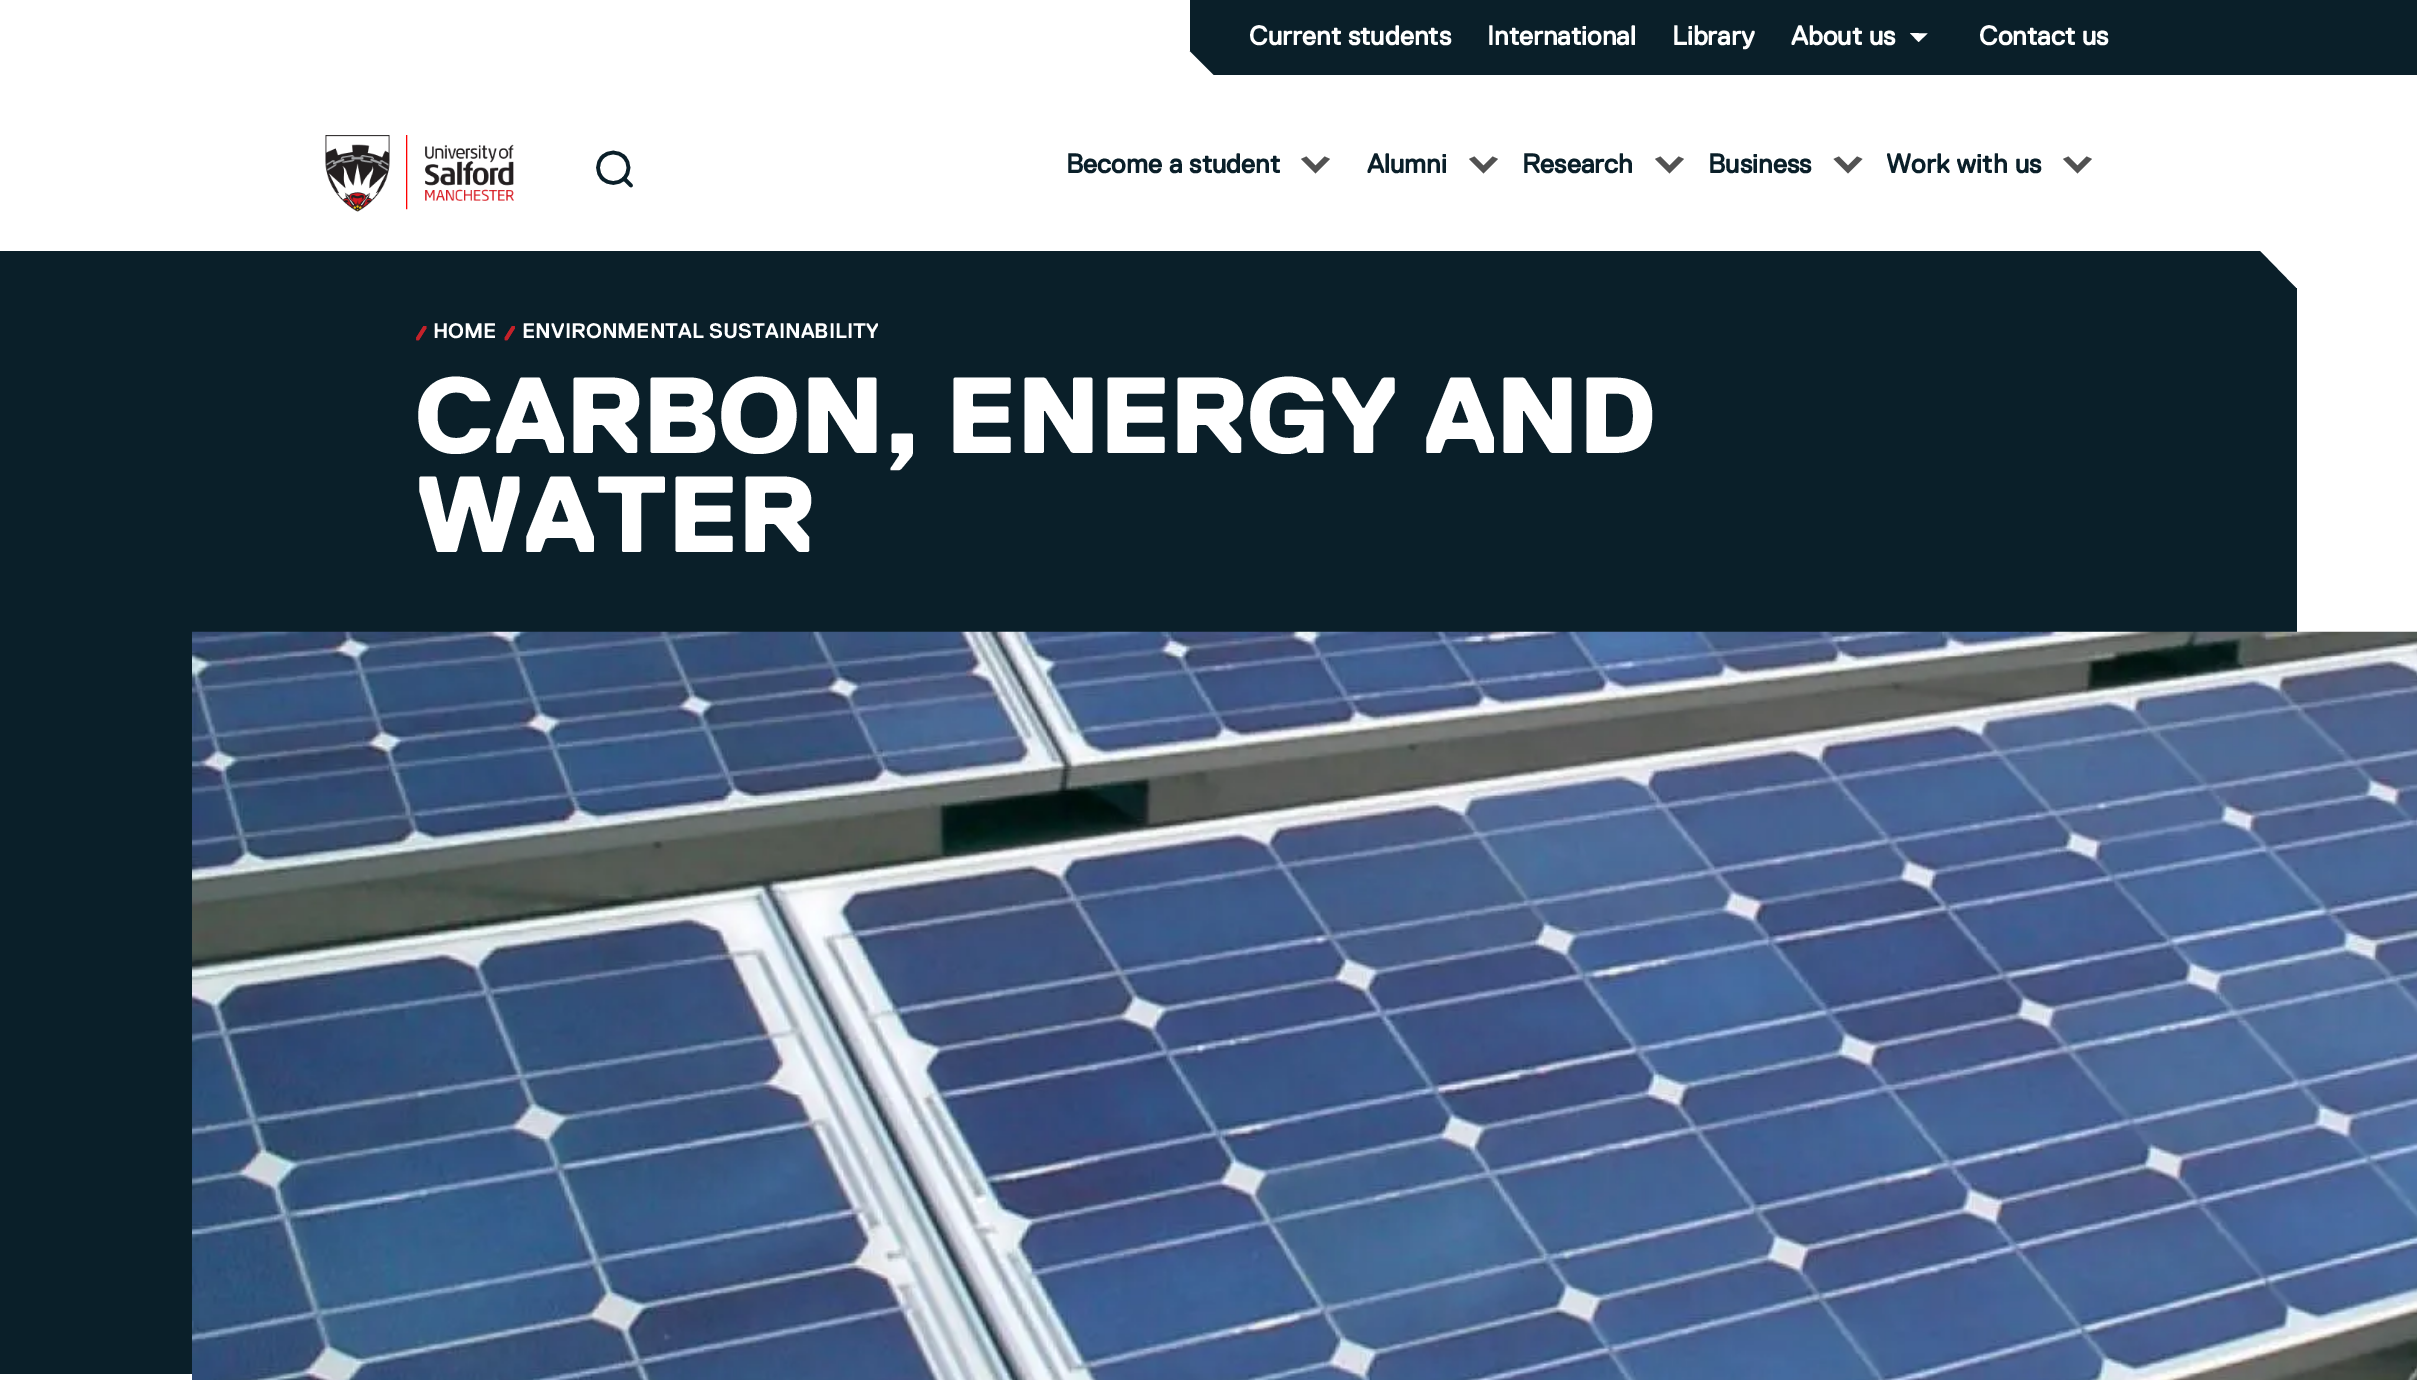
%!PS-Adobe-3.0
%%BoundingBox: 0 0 2417 1380
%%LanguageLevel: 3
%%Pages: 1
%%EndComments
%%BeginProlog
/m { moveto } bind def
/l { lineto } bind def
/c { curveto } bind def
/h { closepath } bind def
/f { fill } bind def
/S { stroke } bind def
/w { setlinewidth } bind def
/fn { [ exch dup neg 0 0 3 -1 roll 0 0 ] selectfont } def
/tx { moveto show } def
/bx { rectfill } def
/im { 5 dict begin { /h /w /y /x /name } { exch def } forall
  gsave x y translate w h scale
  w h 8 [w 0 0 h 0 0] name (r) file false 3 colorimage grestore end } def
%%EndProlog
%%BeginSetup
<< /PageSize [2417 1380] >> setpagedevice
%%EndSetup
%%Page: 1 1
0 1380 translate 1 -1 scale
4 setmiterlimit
1 setgray
0 0 2417 1380 bx
0.039 0.122 0.161 setrgbcolor
2296 288 m 0 288 l 0 250 l 2259 250 l h f
1 setgray
0 250 2260 1 bx
0.039 0.122 0.161 setrgbcolor
1190 0 1227 75 bx
/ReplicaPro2-Bold 27 fn
1 setgray
(Current students) 1249 45 tx
(International) 1487 45 tx
(Library) 1672 45 tx
(About us) 1791 45 tx
1918.5 42 m 1927.5 33.5 l 1910 33 l h f
(Contact us) 1979 45 tx
0.039 0.122 0.161 setrgbcolor
1189.5 51 m 1213.5 51 l 1213.5 75 l h f
1 setgray
1189.5 75 m 1189.5 51 l 1213.5 75 l h f
(image0.raw) 325 135 189 77 im
0.039 0.122 0.161 setrgbcolor
3.6 w
602.5 157 m 608.5 151 618 151 624 157 c 630 163 630 172.5 624 178.5 c 618 184.5 608.5 184.5 602.5 178.5 c 596.5 172.5 596.5 163 602.5 157 c h S
1 setlinecap
624 178.5 m 631 185.5 l S
(Become a student) 1066 173 tx
0.322 setgray
1315.5 165.5 m 1324.5 156.5 l 1330 159 l 1315.5 173.5 l 1301 159 l 1306.5 156.5 l h f
0.039 0.122 0.161 setrgbcolor
(Alumni) 1367 173 tx
0.322 setgray
1483.5 165.5 m 1492.5 156.5 l 1498 159 l 1483.5 173.5 l 1469 159 l 1474.5 156.5 l h f
0.039 0.122 0.161 setrgbcolor
(Research) 1522 173 tx
0.322 setgray
1669.5 165.5 m 1678.5 156.5 l 1684 159 l 1669.5 173.5 l 1655 159 l 1660.5 156.5 l h f
0.039 0.122 0.161 setrgbcolor
(Business) 1708 173 tx
0.322 setgray
1848 165.5 m 1857 156.5 l 1862.5 159 l 1848 173.5 l 1833.5 159 l 1839 156.5 l h f
0.039 0.122 0.161 setrgbcolor
(Work with us) 1886 173 tx
0.322 setgray
2077.5 165.5 m 2086.5 156.5 l 2092 159 l 2077.5 173.5 l 2063 159 l 2068.5 156.5 l h f
0.039 0.122 0.161 setrgbcolor
0 288 2297 1086 bx
(image1.raw) 416 326 11 15 im
/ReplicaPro-Bold 21 fn
1 setgray
(HOME) 433 338 tx
(image2.raw) 504 326 11 15 im
(ENVIRONMENTAL SUSTAINABILITY) 522 338 tx
/ReplicaPro-Black 108 fn
(CARBON, ENERGY AND) 415 453 tx
(WATER) 415 552 tx
(image3.raw) 192 631 2225 749 im
showpage
%%EOF
